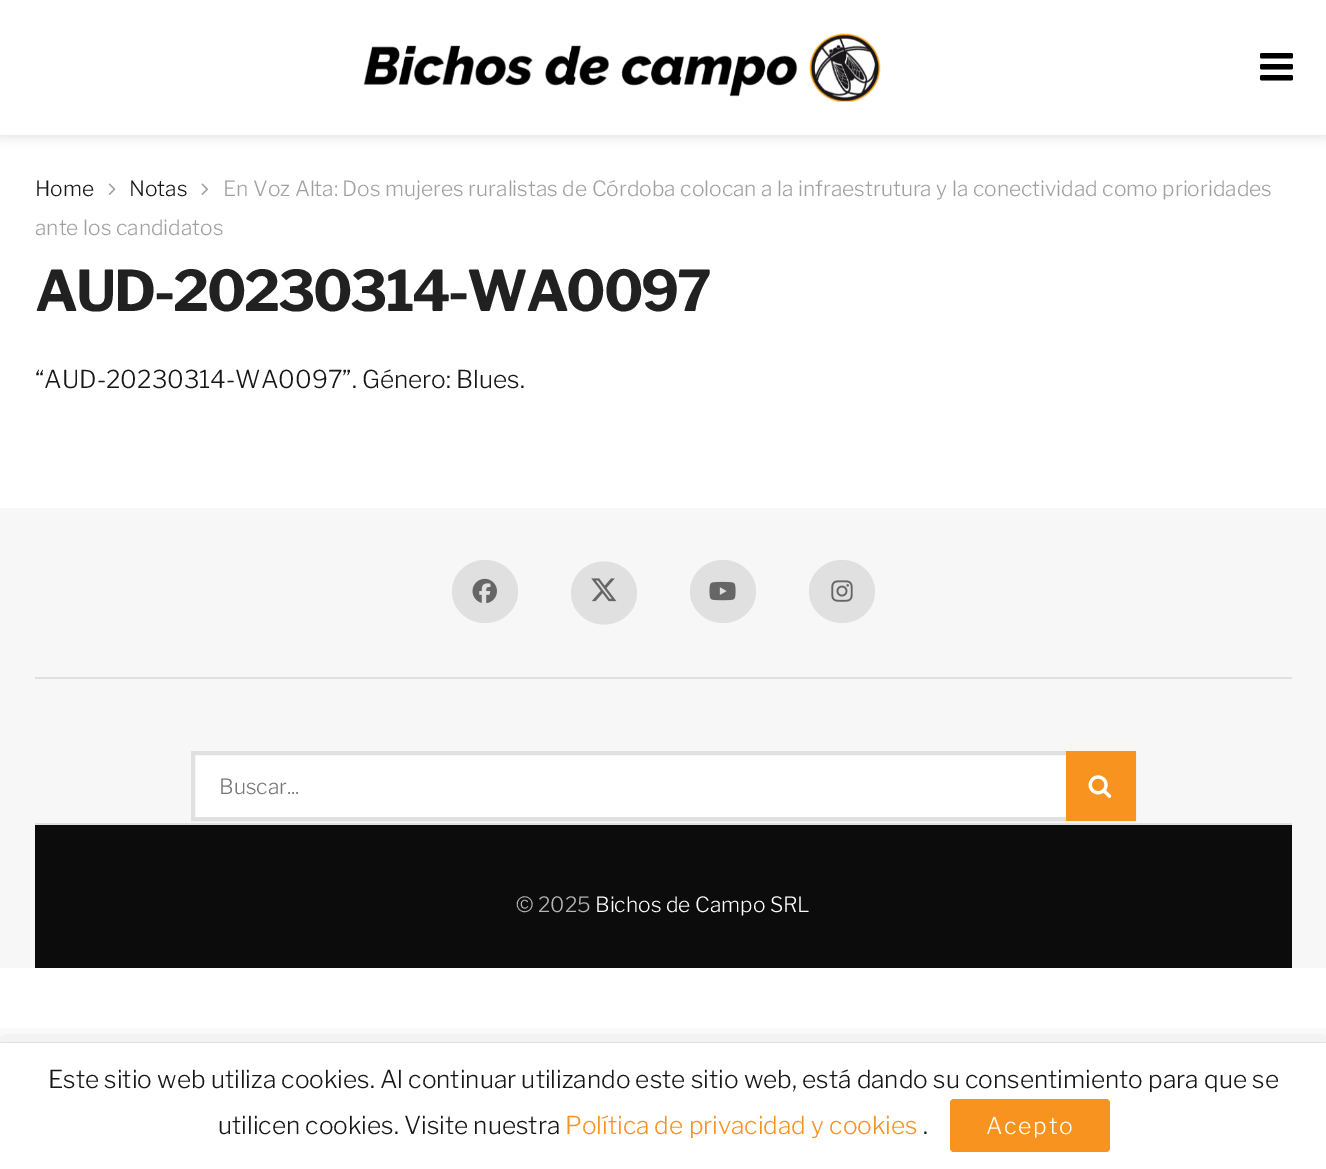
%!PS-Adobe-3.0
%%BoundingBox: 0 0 1326 1169
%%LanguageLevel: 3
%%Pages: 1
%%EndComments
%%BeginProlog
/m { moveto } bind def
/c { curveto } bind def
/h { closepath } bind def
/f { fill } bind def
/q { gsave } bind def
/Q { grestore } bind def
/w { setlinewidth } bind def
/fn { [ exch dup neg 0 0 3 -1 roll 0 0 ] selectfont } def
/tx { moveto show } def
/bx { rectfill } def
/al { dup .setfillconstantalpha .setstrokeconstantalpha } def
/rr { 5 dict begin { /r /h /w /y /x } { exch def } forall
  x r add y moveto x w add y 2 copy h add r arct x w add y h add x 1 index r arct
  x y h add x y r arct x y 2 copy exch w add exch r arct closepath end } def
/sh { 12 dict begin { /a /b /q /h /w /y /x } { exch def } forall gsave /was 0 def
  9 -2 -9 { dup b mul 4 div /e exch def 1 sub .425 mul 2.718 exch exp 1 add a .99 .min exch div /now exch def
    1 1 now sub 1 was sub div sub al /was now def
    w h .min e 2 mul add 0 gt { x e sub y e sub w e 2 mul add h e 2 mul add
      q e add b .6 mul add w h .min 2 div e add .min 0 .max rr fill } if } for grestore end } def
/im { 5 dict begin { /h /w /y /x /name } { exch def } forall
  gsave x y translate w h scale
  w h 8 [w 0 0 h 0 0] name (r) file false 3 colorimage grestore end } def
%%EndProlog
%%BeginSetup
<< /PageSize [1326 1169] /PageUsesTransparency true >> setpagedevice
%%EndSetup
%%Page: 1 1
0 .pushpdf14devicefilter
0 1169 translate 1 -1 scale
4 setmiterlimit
1 setgray
0 0 1326 1169 bx
0 setgray
0 4 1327 134 0 5 0.1 sh
1 setgray
0 0 1326 135 bx
(image0.raw) 363 33 518 69 im
(image1.raw) 1260 53 33 28 im
/LibreFranklin-Thin 21 fn
0.09 setgray
(Home) 35 196 tx
(image2.raw) 108 183 8 12 im
(Notas) 129 196 tx
(image3.raw) 201 183 8 12 im
0.627 setgray
(En Voz Alta: Dos mujeres ruralistas de Córdoba colocan a la infraestrutura y la conectividad como prioridades) 223 196 tx
(ante los candidatos) 35 235 tx
/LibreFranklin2-Thin 56 fn
0.129 setgray
35 311 m -2.25 0 (AUD-20230314-WA0097) ashow
/LibreFranklin-Thin 24.5 fn
0.09 setgray
(“AUD-20230314-WA0097”. Género: Blues.) 35 388 tx
0.969 setgray
0 508 1326 460 bx
0.878 setgray
35 677 1257 2 bx
485 560 m 503 560 518 574 518 591.5 c 518 609 503 623 485 623 c 467 623 452 609 452 591.5 c 452 574 467 560 485 560 c h f
(image4.raw) 472 578 25 26 im
604 561.5 m 622 561.5 637 575.5 637 593 c 637 610.5 622 624.5 604 624.5 c 586 624.5 571 610.5 571 593 c 571 575.5 586 561.5 604 561.5 c h f
(image5.raw) 591 578 26 24 im
723 560 m 741 560 756 574 756 591.5 c 756 609 741 623 723 623 c 705 623 690 609 690 591.5 c 690 574 705 560 723 560 c h f
(image6.raw) 709 581 27 20 im
842 560 m 860 560 875 574 875 591.5 c 875 609 860 623 842 623 c 824 623 809 609 809 591.5 c 809 574 824 560 842 560 c h f
(image7.raw) 831 580 22 22 im
1 setgray
195 755 871 62 bx
0.878 setgray
4 w
193 753 941 66 rectstroke
/LibreFranklin-Thin 21 fn
0.459 setgray
(Buscar...) 219 794 tx
0.969 0.576 0.118 setrgbcolor
1066 751 70 70 bx
(image8.raw) 1088 775 24 23 im
0.047 setgray
35 825 1257 143 bx
0.878 setgray
35 823 1257 2 bx
0.714 setgray
(© 2025) 516 912 tx
1 setgray
(Bichos de Campo SRL) 595 912 tx
q
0 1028 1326 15 rectclip
0 setgray
0 1047 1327 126 0 17.5 0.15 sh
Q
q
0 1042 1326 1 rectclip
0 setgray
0 1043 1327 126 0 1 0.2 sh
Q
/LibreFranklin-Thin 24.5 fn
0.09 setgray
(Este sitio web utiliza cookies. Al continuar utilizando este sitio web, está dando su consentimiento para que se) 48 1088 tx
(utilicen cookies. Visite nuestra) 218 1134 tx
0.969 0.576 0.118 setrgbcolor
(Política de privacidad y cookies) 565 1134 tx
0.09 setgray
(.) 923 1134 tx
0.969 0.576 0.118 setrgbcolor
950 1099 160 53 4 rr f
/LibreFranklin-Thin 23 fn
1 setgray
986 1134 m 1.75 0 (Acepto) ashow
.poppdf14devicefilter showpage
%%EOF
